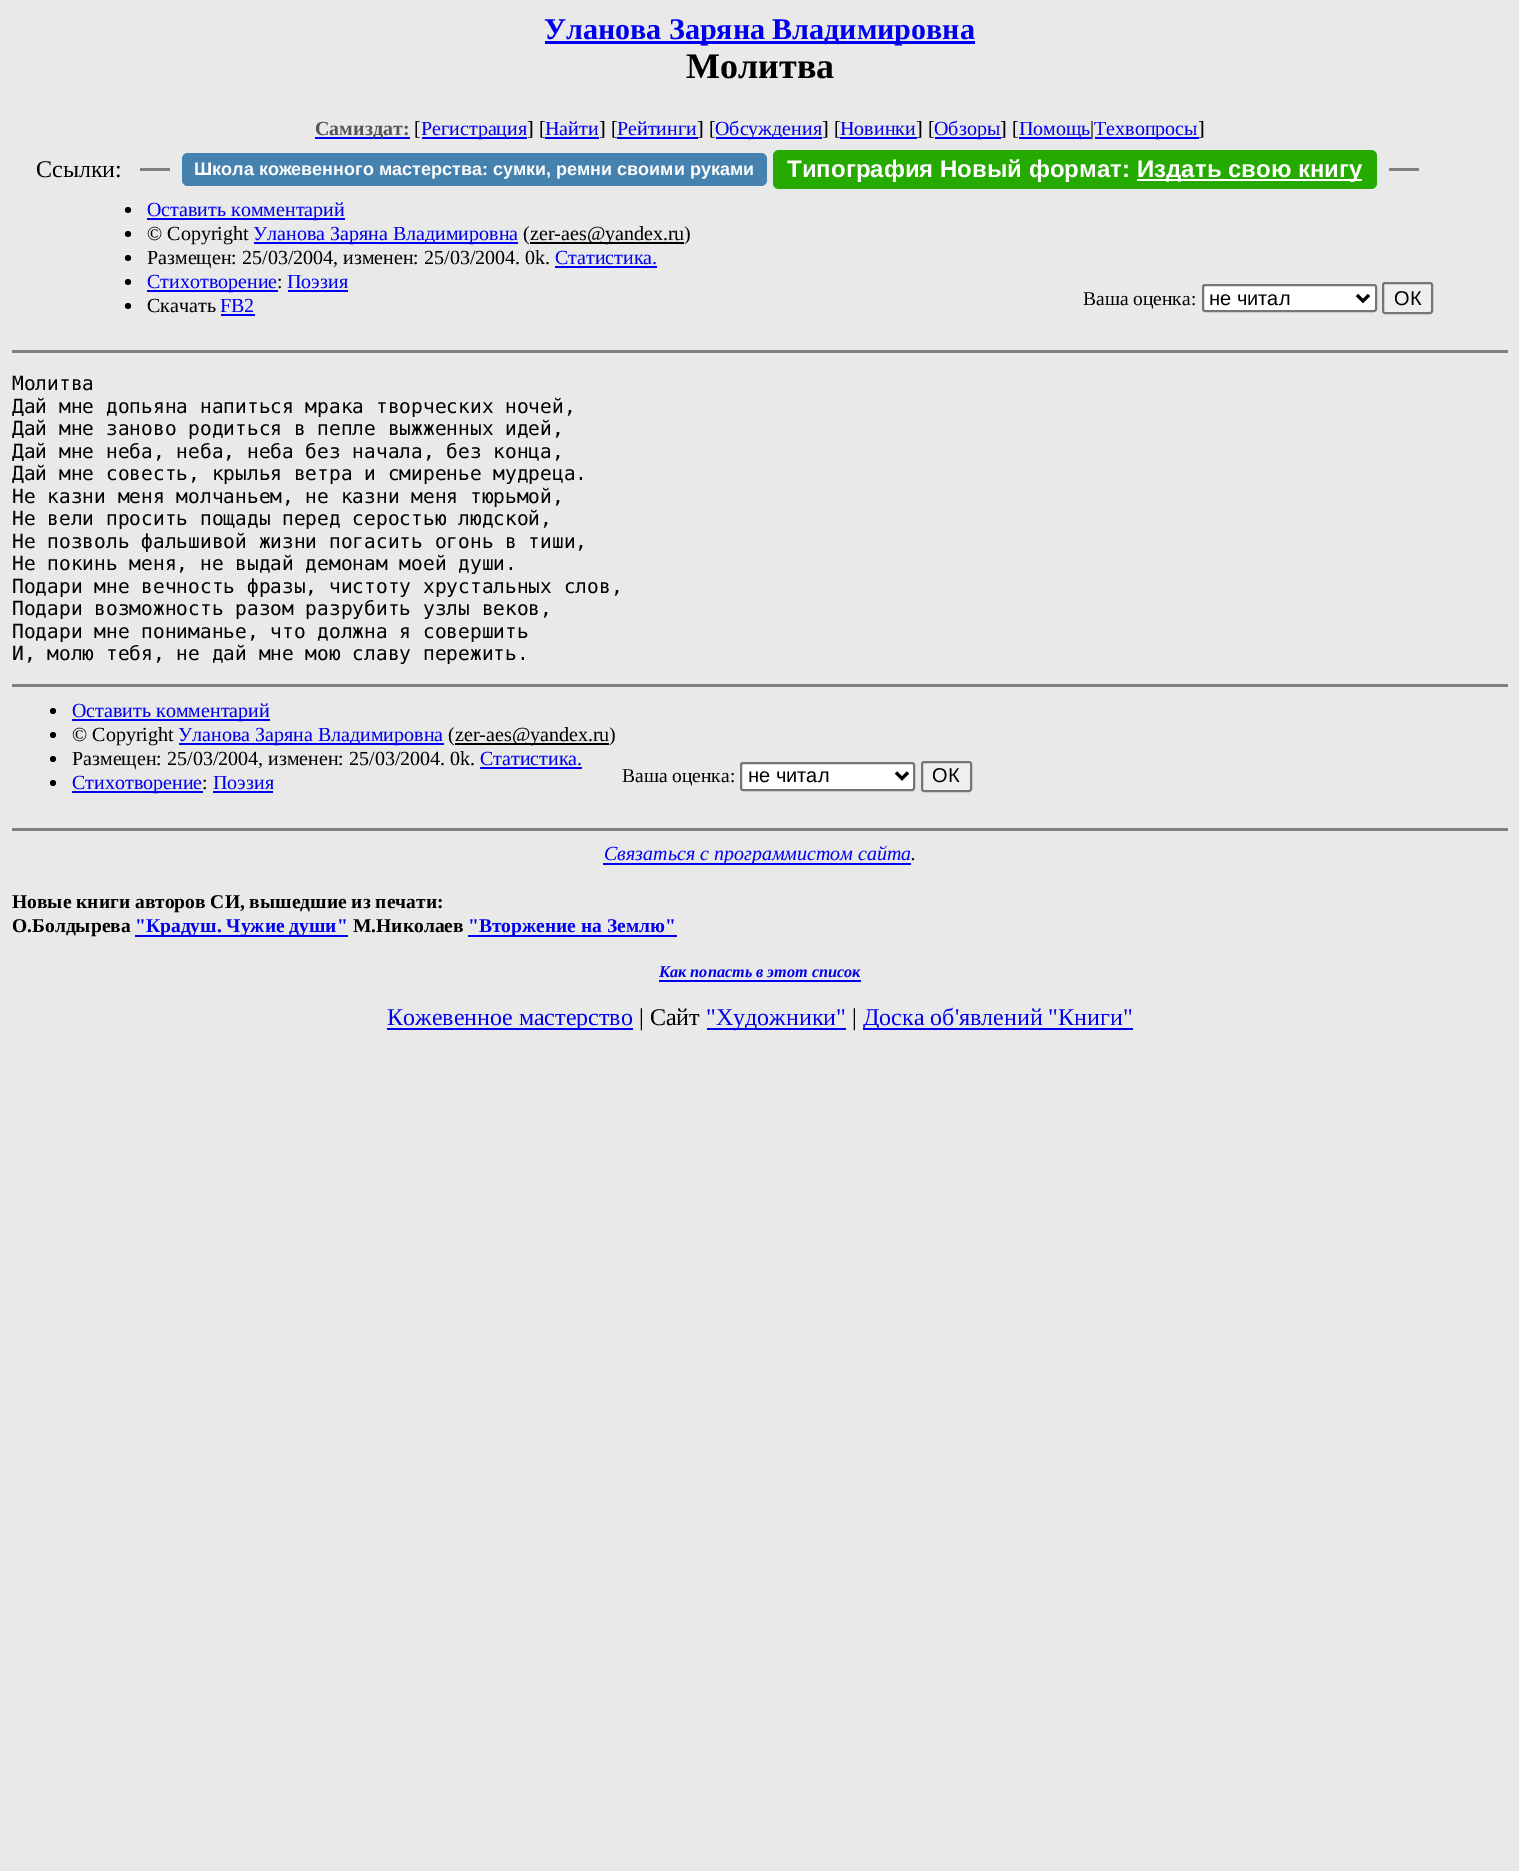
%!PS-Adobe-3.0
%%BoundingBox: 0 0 1519 1871
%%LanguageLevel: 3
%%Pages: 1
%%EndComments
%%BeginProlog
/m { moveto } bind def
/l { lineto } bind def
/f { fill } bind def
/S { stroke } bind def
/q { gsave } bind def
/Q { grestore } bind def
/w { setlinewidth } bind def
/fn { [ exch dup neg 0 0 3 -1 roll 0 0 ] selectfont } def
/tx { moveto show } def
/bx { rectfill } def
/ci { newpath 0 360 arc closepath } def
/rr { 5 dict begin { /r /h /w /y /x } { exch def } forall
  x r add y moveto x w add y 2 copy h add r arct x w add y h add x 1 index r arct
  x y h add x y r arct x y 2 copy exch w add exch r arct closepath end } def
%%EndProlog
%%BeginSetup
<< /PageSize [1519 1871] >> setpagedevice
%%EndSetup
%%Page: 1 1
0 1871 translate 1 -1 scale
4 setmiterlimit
0.914 setgray
0 0 1519 1871 bx
0 0 0.933 setrgbcolor
545 41 430 3 bx
/LiberationSerif-Bold 30 fn
(Уланова Заряна Владимировна) 544 39 tx
/LiberationSerif-Bold 36 fn
0 setgray
(Молитва) 686 78 tx
0 0 0.933 setrgbcolor
315 137 95 2 bx
/LiberationSerif-Bold 20 fn
0.333 setgray
(Самиздат:) 315 135 tx
/LiberationSerif-Regular 20 fn
0 setgray
([) 414 135 tx
0 0 0.933 setrgbcolor
422 137 105 2 bx
(Регистрация) 421 135 tx
0 setgray
(] [) 527 135 tx
0 0 0.933 setrgbcolor
545 137 54 2 bx
(Найти) 545 135 tx
0 setgray
(] [) 599 135 tx
0 0 0.933 setrgbcolor
617 137 81 2 bx
(Рейтинги) 617 135 tx
0 setgray
(] [) 697 135 tx
0 0 0.933 setrgbcolor
716 137 106 2 bx
(Обсуждения) 715 135 tx
0 setgray
(] [) 822 135 tx
0 0 0.933 setrgbcolor
840 137 77 2 bx
(Новинки) 840 135 tx
0 setgray
(] [) 916 135 tx
0 0 0.933 setrgbcolor
935 137 66 2 bx
(Обзоры) 934 135 tx
0 setgray
(] [) 1000 135 tx
0 0 0.933 setrgbcolor
1019 137 72 2 bx
(Помощь) 1019 135 tx
0 setgray
(|) 1090 135 tx
0 0 0.933 setrgbcolor
1095 137 104 2 bx
(Техвопросы) 1094 135 tx
0 setgray
(]) 1198 135 tx
/LiberationSerif-Regular 24 fn
(Ссылки:) 36 177 tx
0.502 setgray
140 168 30 3 bx
0.271 0.51 0.686 setrgbcolor
182 153 585 33 6 rr f
/LiberationSans-Bold 18 fn
1 setgray
(Школа кожевенного мастерства: сумки, ремни своими руками) 194 175 tx
0.145 0.667 0 setrgbcolor
773 150 604 39 6 rr f
/LiberationSans-Bold 24 fn
1 setgray
(Типография Новый формат:) 787 177 tx
1137 179 225 2 bx
(Издать свою книгу) 1137 177 tx
0.502 setgray
1389 168 30 3 bx
0 setgray
128 210 3 ci f
0 0 0.933 setrgbcolor
147 218 198 2 bx
/LiberationSerif-Regular 20 fn
(Оставить комментарий) 147 216 tx
0 setgray
128 234 3 ci f
(© Copyright) 147 240 tx
0 0 0.933 setrgbcolor
254 242 264 2 bx
(Уланова Заряна Владимировна) 253 240 tx
0 setgray
(\() 523 240 tx
530 242 154 2 bx
(zer-aes@yandex.ru\)) 530 240 tx
128 258 3 ci f
(Размещен: 25/03/2004, изменен: 25/03/2004. 0k.) 147 264 tx
0 0 0.933 setrgbcolor
(Статистика.) 555 264 tx
555 266 102 2 bx
0 setgray
128 282 3 ci f
0 0 0.933 setrgbcolor
147 290 131 2 bx
(Стихотворение) 147 288 tx
0 setgray
(:) 277 288 tx
0 0 0.933 setrgbcolor
(Поэзия) 287 288 tx
288 290 60 2 bx
0 setgray
128 306 3 ci f
(Скачать) 147 312 tx
0 0 0.933 setrgbcolor
(FB2) 220 312 tx
221 314 34 2 bx
/LiberationSerif-Regular 19.5 fn
0 setgray
(Ваша оценка:) 1083 305 tx
1 setgray
1203 285 173 26 2 rr q f Q
0.463 setgray
2 w
S
0 setgray
3 w
1357 295 m 1363 301 l 1369 295 l S
/LiberationSans-Regular 20 fn
(не читал) 1209 305 tx
0.937 setgray
1383 283 49 30 2 rr q f Q
0.463 setgray
2 w
S
0 setgray
(ОК) 1394 305 tx
0.502 setgray
12 350 1496 3 bx
/DejaVuSansMono-Regular 19.5 fn
0 setgray
(Молитва) 12 390 tx
(Дай мне допьяна напиться мрака творческих ночей,) 12 413 tx
(Дай мне заново родиться в пепле выжженных идей,) 12 435 tx
(Дай мне неба, неба, неба без начала, без конца,) 12 458 tx
(Дай мне совесть, крылья ветра и смиренье мудреца.) 12 480 tx
(Не казни меня молчаньем, не казни меня тюрьмой,) 12 503 tx
(Не вели просить пощады перед серостью людской,) 12 525 tx
(Не позволь фальшивой жизни погасить огонь в тиши,) 12 548 tx
(Не покинь меня, не выдай демонам моей души.) 12 570 tx
(Подари мне вечность фразы, чистоту хрустальных слов,) 12 593 tx
(Подари возможность разом разрубить узлы веков,) 12 615 tx
(Подари мне пониманье, что должна я совершить) 12 638 tx
(И, молю тебя, не дай мне мою славу пережить.) 12 660 tx
0.502 setgray
12 684 1496 3 bx
0 setgray
53 711 3 ci f
0 0 0.933 setrgbcolor
72 719 198 2 bx
/LiberationSerif-Regular 20 fn
(Оставить комментарий) 72 717 tx
0 setgray
53 735 3 ci f
(© Copyright) 72 741 tx
0 0 0.933 setrgbcolor
179 743 265 2 bx
(Уланова Заряна Владимировна) 178 741 tx
0 setgray
(\() 448 741 tx
455 743 154 2 bx
(zer-aes@yandex.ru\)) 455 741 tx
53 759 3 ci f
(Размещен: 25/03/2004, изменен: 25/03/2004. 0k.) 72 765 tx
0 0 0.933 setrgbcolor
(Статистика.) 480 765 tx
480 767 102 2 bx
0 setgray
53 783 3 ci f
0 0 0.933 setrgbcolor
72 791 131 2 bx
(Стихотворение) 72 789 tx
0 setgray
(:) 202 789 tx
0 0 0.933 setrgbcolor
(Поэзия) 213 789 tx
213 791 60 2 bx
/LiberationSerif-Regular 19.5 fn
0 setgray
(Ваша оценка:) 622 782 tx
1 setgray
741 763 173 27 2 rr q f Q
0.463 setgray
S
0 setgray
3 w
896 772.5 m 902 778.5 l 908 772.5 l S
/LiberationSans-Regular 20 fn
(не читал) 748 782 tx
0.937 setgray
922 762 49 29 2 rr q f Q
0.463 setgray
2 w
S
0 setgray
(ОК) 932 782 tx
0.502 setgray
12 828 1496 3 bx
0 0 0.933 setrgbcolor
603 863 308 2 bx
/LiberationSerif-Italic 20 fn
(Связаться с программистом сайта) 604 860 tx
0 setgray
(.) 911 860 tx
/LiberationSerif-Bold 19.5 fn
(Новые книги авторов СИ, вышедшие из печати:) 12 908 tx
(О.Болдырева) 12 932 tx
0 0 0.933 setrgbcolor
135 935 213 2 bx
("Крадуш. Чужие души") 135 932 tx
0 setgray
(М.Николаев) 353 932 tx
0 0 0.933 setrgbcolor
468 935 209 2 bx
("Вторжение на Землю") 468 932 tx
/LiberationSerif-BoldItalic 16.25 fn
(Как попасть в этoт список) 659 977 tx
659 980 202 2 bx
387 1028 246 2 bx
/LiberationSerif-Regular 24 fn
(Кожевенное мастерство) 387 1025 tx
0 setgray
(| Сайт) 639 1025 tx
0 0 0.933 setrgbcolor
707 1028 139 2 bx
("Художники") 706 1025 tx
0 setgray
(|) 852 1025 tx
0 0 0.933 setrgbcolor
863 1028 270 2 bx
(Доска об'явлений "Книги") 863 1025 tx
showpage
%%EOF
